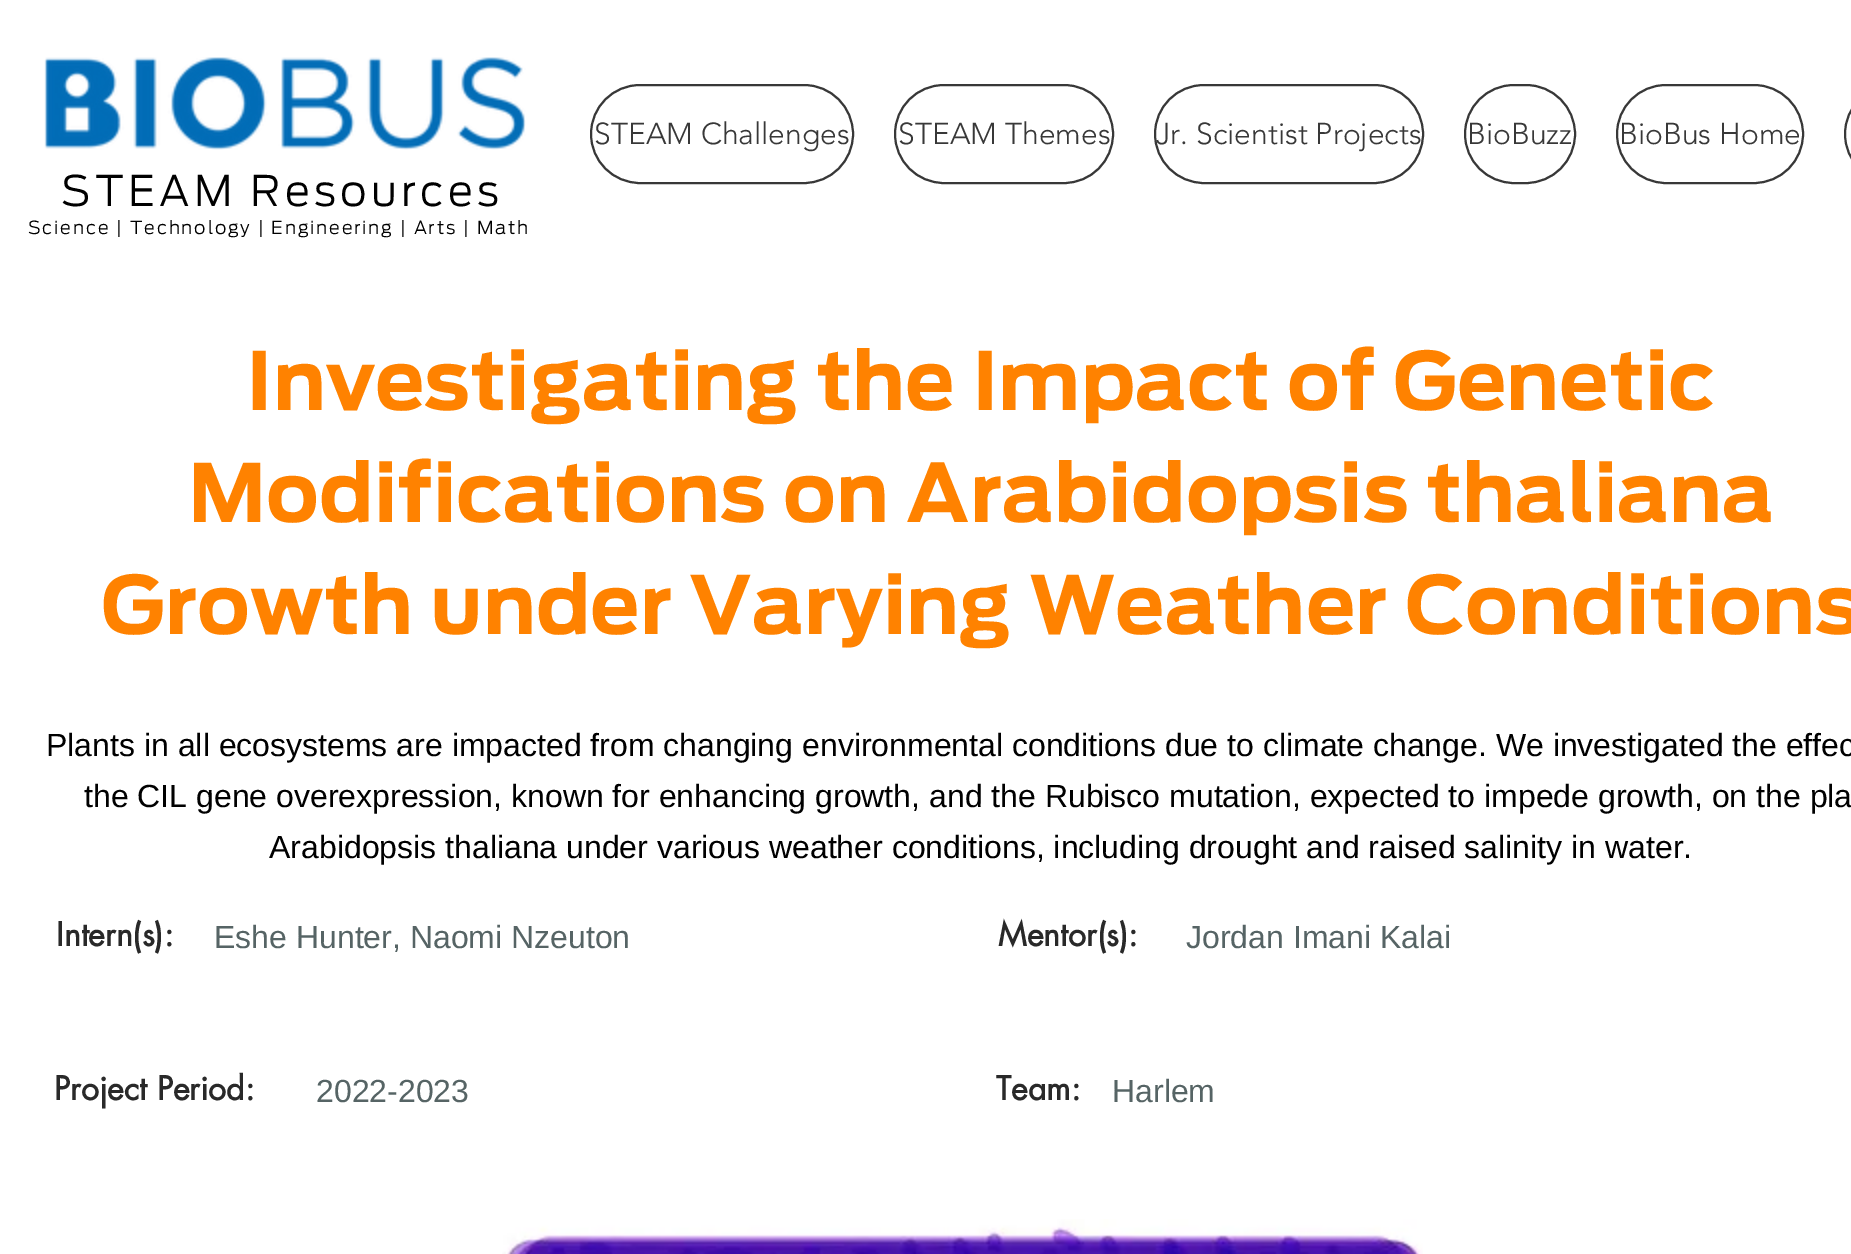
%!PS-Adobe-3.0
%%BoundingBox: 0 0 1851 1254
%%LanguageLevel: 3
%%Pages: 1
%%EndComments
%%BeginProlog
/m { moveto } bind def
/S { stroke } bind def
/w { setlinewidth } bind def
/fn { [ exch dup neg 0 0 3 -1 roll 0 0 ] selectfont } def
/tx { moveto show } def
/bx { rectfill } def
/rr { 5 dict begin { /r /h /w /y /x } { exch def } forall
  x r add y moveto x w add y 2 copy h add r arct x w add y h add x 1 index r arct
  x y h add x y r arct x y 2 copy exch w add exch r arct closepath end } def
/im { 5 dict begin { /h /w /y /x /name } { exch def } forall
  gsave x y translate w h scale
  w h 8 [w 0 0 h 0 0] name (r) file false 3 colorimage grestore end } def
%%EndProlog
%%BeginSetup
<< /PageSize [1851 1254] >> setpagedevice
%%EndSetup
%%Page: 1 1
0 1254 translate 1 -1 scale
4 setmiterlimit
1 setgray
0 0 1851 1254 bx
(image0.raw) 44 57 482 93 im
0.22 setgray
2 w
591 85 262 98 49 rr S
/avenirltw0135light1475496-Light 30 fn
(STEAM Challenges) 594 144 tx
895 85 218 98 49 rr S
(STEAM Themes) 898 144 tx
1155 85 268 98 49 rr S
(Jr. Scientist Projects) 1156 144 tx
1465 85 110 98 49 rr S
(BioBuzz) 1467 144 tx
1617 85 186 98 49 rr S
(BioBus Home) 1619 144 tx
1845 85 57 98 49 rr S
/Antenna-Light 42 fn
0 setgray
61 206 m 4.25 0 (STEAM Resources) ashow
/Antenna-Light 18 fn
28 234 m 1.8 0 (Science | Technology | Engineering | Arts | Math) ashow
/Antenna-Bold 80 fn
1 0.51 0 setrgbcolor
(Investigating the Impact of Genetic) 246 410 tx
(Modifications on Arabidopsis thaliana) 188 522 tx
(Growth under Varying Weather Conditions) 101 634 tx
/LiberationSans-Regular 32 fn
0 setgray
(Plants in all ecosystems are impacted from changing environmental conditions due to climate change. We investigated the effec) 46 756 tx
(the CIL gene overexpression, known for enhancing growth, and the Rubisco mutation, expected to impede growth, on the pla) 84 807 tx
(Arabidopsis thaliana under various weather conditions, including drought and raised salinity in water.) 269 858 tx
/futura-Bold 32 fn
0.161 setgray
(Intern\(s\):) 56 946 tx
/LiberationSans-Regular 32 fn
0.337 0.392 0.396 setrgbcolor
(Eshe Hunter, Naomi Nzeuton) 214 948 tx
/futura-Bold 32 fn
0.161 setgray
(Mentor\(s\):) 998 946 tx
/LiberationSans-Regular 32 fn
0.337 0.392 0.396 setrgbcolor
(Jordan Imani Kalai) 1186 948 tx
/futura-Bold 32 fn
0.161 setgray
(Project Period:) 54 1100 tx
/LiberationSans-Regular 32 fn
0.337 0.392 0.396 setrgbcolor
(2022-2023) 316 1102 tx
/futura-Bold 32 fn
0.161 setgray
(Team:) 996 1100 tx
/LiberationSans-Regular 32 fn
0.337 0.392 0.396 setrgbcolor
(Harlem) 1112 1102 tx
(image1.raw) 502 1219 921 35 im
showpage
%%EOF
